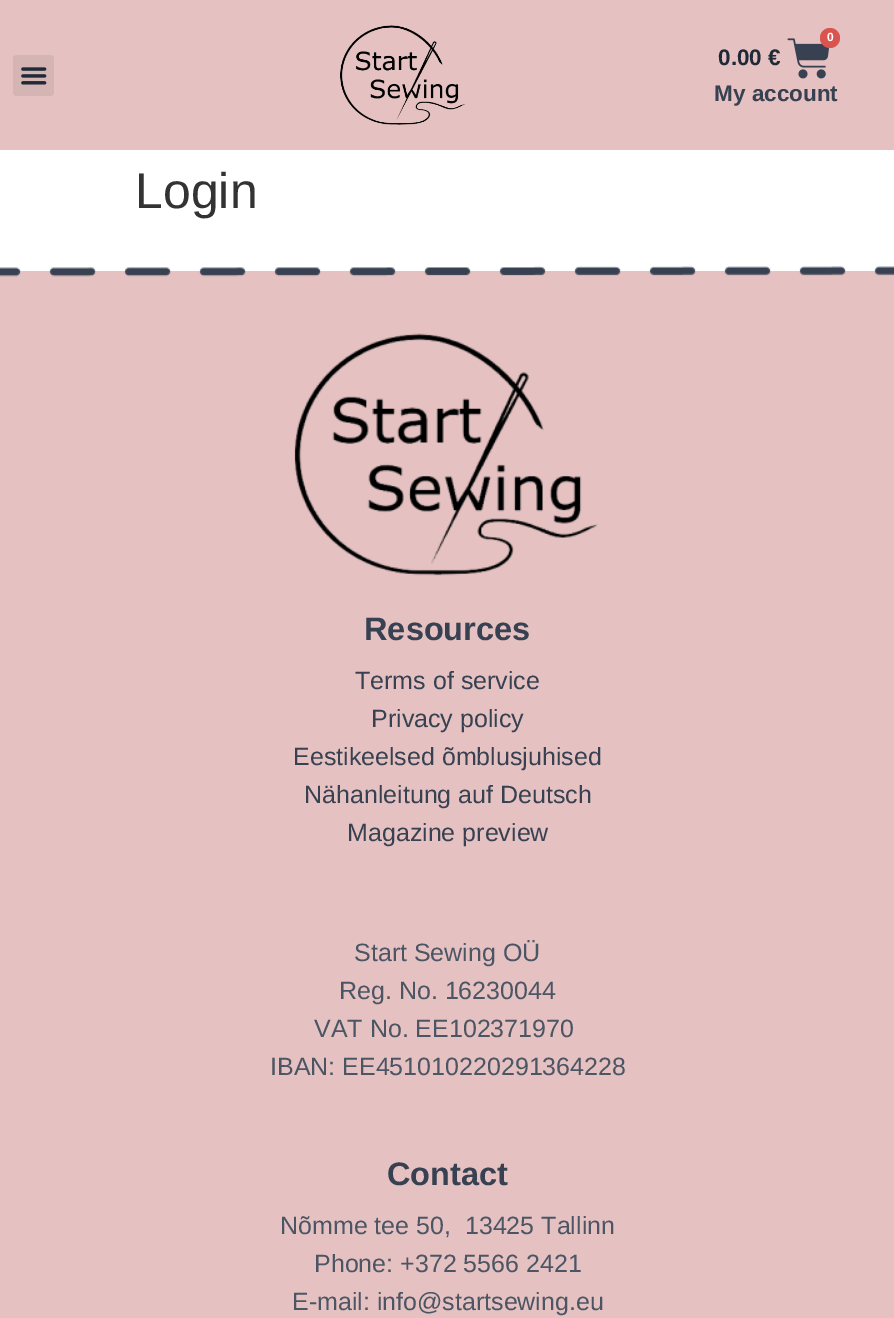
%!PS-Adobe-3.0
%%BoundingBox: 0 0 894 1318
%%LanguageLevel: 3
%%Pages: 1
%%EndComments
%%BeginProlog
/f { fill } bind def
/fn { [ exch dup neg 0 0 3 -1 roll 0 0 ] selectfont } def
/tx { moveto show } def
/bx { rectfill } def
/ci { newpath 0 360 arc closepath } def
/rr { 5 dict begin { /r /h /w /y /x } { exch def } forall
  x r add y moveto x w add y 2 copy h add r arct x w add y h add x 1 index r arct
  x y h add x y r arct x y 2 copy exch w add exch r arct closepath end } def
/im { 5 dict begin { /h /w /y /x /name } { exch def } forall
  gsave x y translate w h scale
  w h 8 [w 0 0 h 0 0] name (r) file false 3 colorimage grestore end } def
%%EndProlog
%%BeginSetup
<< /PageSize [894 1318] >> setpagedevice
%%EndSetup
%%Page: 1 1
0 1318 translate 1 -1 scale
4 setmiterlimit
1 setgray
0 0 894 1318 bx
0.898 0.757 0.757 setrgbcolor
0 0 894 150 bx
0.835 0.706 0.706 setrgbcolor
13 55 41 41 4 rr f
(image0.raw) 21 67 26 18 im
(image1.raw) 340 25 125 100 im
(image2.raw) 787 38 43 41 im
0.851 0.325 0.31 setrgbcolor
830 38 10 ci f
/LiberationSans-Bold 12 fn
1 setgray
(0) 827 41 tx
/LiberationSans-Bold 22.5 fn
0.122 0.161 0.216 setrgbcolor
(0.00 €) 718 65 tx
0.216 0.255 0.318 setrgbcolor
(My account) 714 101 tx
/LiberationSans-Regular 50 fn
0.2 setgray
(Login) 135 208 tx
0.898 0.757 0.757 setrgbcolor
0 271 894 1047 bx
(image3.raw) 0 266 894 11 im
(image4.raw) 294 333 304 243 im
/LiberationSans-Bold 32.5 fn
0.216 0.255 0.318 setrgbcolor
(Resources) 364 640 tx
/LiberationSans-Regular 25 fn
(Terms of service) 355 689 tx
(Privacy policy) 371 727 tx
(Eestikeelsed õmblusjuhised) 293 765 tx
(Nähanleitung auf Deutsch) 304 803 tx
(Magazine preview) 347 841 tx
0.294 0.333 0.388 setrgbcolor
(Start Sewing OÜ) 354 961 tx
(Reg. No. 16230044) 339 999 tx
(VAT No. EE102371970) 314 1037 tx
(IBAN: EE451010220291364228) 270 1075 tx
/LiberationSans-Bold 32.5 fn
0.216 0.255 0.318 setrgbcolor
(Contact) 387 1185 tx
/LiberationSans-Regular 25 fn
0.294 0.333 0.388 setrgbcolor
(Nõmme tee 50,  13425 Tallinn) 280 1234 tx
(Phone: +372 5566 2421) 314 1272 tx
(E-mail: info@startsewing.eu) 292 1310 tx
showpage
%%EOF
